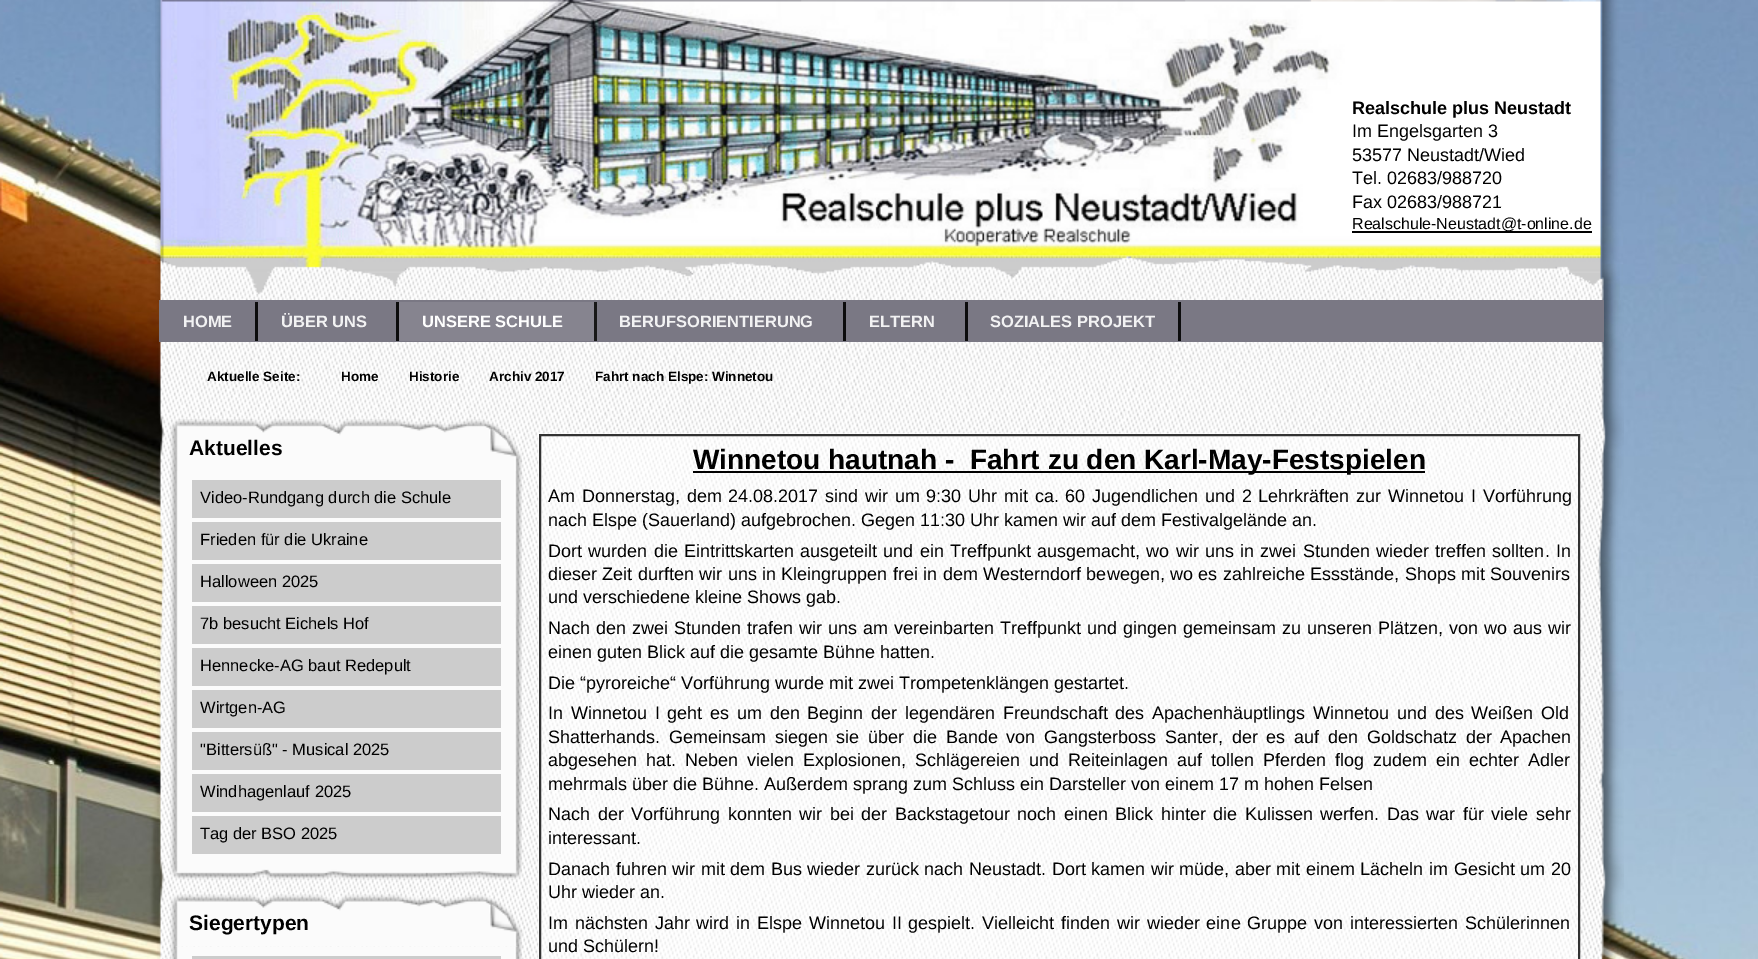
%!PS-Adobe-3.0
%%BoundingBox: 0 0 1758 959
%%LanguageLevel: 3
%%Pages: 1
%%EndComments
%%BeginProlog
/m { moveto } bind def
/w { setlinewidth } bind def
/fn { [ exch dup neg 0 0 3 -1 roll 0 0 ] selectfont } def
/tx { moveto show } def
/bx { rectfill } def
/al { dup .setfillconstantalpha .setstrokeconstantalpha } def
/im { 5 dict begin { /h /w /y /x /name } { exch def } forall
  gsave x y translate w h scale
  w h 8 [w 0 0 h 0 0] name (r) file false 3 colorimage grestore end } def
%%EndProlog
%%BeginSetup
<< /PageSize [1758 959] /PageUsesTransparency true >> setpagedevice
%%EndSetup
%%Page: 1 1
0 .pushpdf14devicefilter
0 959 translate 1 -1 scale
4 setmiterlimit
1 setgray
0 0 1758 959 bx
(image0.raw) 0 0 1758 959 im
(image1.raw) 155 0 1465 300 im
/LiberationSans-Bold 18 fn
0 setgray
(Realschule plus Neustadt) 1352 114 tx
/LiberationSans-Regular 18 fn
(Im Engelsgarten 3) 1352 137 tx
(53577 Neustadt/Wied) 1352 161 tx
(Tel. 02683/988720) 1352 184 tx
(Fax 02683/988721) 1352 208 tx
1352 231 240 2 bx
/LiberationSans-Regular 16 fn
(Realschule-Neustadt@t-online.de) 1352 229 tx
(image2.raw) 157 300 1467 659 im
0.478 0.471 0.518 setrgbcolor
159 300 1445 42 bx
0.047 0.047 0.051 setrgbcolor
255 302 3 39 bx
/LiberationSans-Bold 16.5 fn
0.949 0.949 0.953 setrgbcolor
(HOME) 183 327 tx
0.047 0.047 0.051 setrgbcolor
396 302 3 39 bx
0.949 0.949 0.953 setrgbcolor
(ÜBER UNS) 281 327 tx
0.525 0.518 0.561 setrgbcolor
399 302 195 39 bx
0.094 setgray
594 302 3 39 bx
0.996 setgray
(UNSERE SCHULE) 422 327 tx
0.047 0.047 0.051 setrgbcolor
843 302 3 39 bx
0.949 0.949 0.953 setrgbcolor
(BERUFSORIENTIERUNG) 619 327 tx
0.047 0.047 0.051 setrgbcolor
965 302 3 39 bx
0.949 0.949 0.953 setrgbcolor
(ELTERN) 869 327 tx
0.047 0.047 0.051 setrgbcolor
1178 302 3 39 bx
0.949 0.949 0.953 setrgbcolor
(SOZIALES PROJEKT) 990 327 tx
/LiberationSans-Bold 13.5 fn
0 setgray
(Aktuelle Seite:) 207 381 tx
(Home) 341 381 tx
(Historie) 409 381 tx
(Archiv 2017) 489 381 tx
(Fahrt nach Elspe: Winnetou) 595 381 tx
(image3.raw) 170 419 352 52 im
/LiberationSans-Bold 21 fn
(Aktuelles) 189 455 tx
(image4.raw) 170 471 352 390 im
0.8 setgray
192 480 309 38 bx
/LiberationSans-Regular 16.5 fn
0 setgray
(Video-Rundgang durch die Schule) 200 503 tx
0.8 setgray
192 522 309 38 bx
0 setgray
(Frieden für die Ukraine) 200 545 tx
0.8 setgray
192 564 309 38 bx
0 setgray
(Halloween 2025) 200 587 tx
0.8 setgray
192 606 309 38 bx
0 setgray
(7b besucht Eichels Hof) 200 629 tx
0.8 setgray
192 648 309 38 bx
0 setgray
(Hennecke-AG baut Redepult) 200 671 tx
0.8 setgray
192 690 309 38 bx
0 setgray
(Wirtgen-AG) 200 713 tx
0.8 setgray
192 732 309 38 bx
0 setgray
("Bittersüß" - Musical 2025) 200 755 tx
0.8 setgray
192 774 309 38 bx
0 setgray
(Windhagenlauf 2025) 200 797 tx
0.8 setgray
192 816 309 38 bx
0 setgray
(Tag der BSO 2025) 200 839 tx
(image5.raw) 170 861 352 19 im
(image6.raw) 170 894 352 53 im
/LiberationSans-Bold 21 fn
(Siegertypen) 189 930 tx
(image7.raw) 170 946 352 13 im
0.8 setgray
192 956 309 3 bx
0.5 al
1 setgray
538 433 1042 526 bx
1 al
0.2 setgray
2 w
540 435 1039 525 rectstroke
0 setgray
693 471 732 2 bx
/LiberationSans-Bold 28 fn
(Winnetou hautnah -  Fahrt zu den Karl-May-Festspielen) 693 469 tx
/LiberationSans-Regular 18 fn
548 502 m 1.75 0 32 (Am Donnerstag, dem 24.08.2017 sind wir um 9:30 Uhr mit ca. 60 Jugendlichen und 2 Lehrkräften zur Winnetou I Vorführung) widthshow
(nach Elspe \(Sauerland\) aufgebrochen. Gegen 11:30 Uhr kamen wir auf dem Festivalgelände an.) 548 526 tx
548 557 m 1.25 0 32 (Dort wurden die Eintrittskarten ausgeteilt und ein Treffpunkt ausgemacht, wo wir uns in zwei Stunden wieder treffen sollten. In) widthshow
548 580 m 0.4 0 32 (dieser Zeit durften wir uns in Kleingruppen frei in dem Westerndorf bewegen, wo es zahlreiche Essstände, Shops mit Souvenirs) widthshow
(und verschiedene kleine Shows gab.) 548 603 tx
548 634 m 1 0 32 (Nach den zwei Stunden trafen wir uns am vereinbarten Treffpunkt und gingen gemeinsam zu unseren Plätzen, von wo aus wir) widthshow
(einen guten Blick auf die gesamte Bühne hatten.) 548 658 tx
(Die “pyroreiche“ Vorführung wurde mit zwei Trompetenklängen gestartet.) 548 689 tx
548 719 m 2.75 0 32 (In Winnetou I geht es um den Beginn der legendären Freundschaft des Apachenhäuptlings Winnetou und des Weißen Old) widthshow
548 743 m 3.75 0 32 (Shatterhands. Gemeinsam siegen sie über die Bande von Gangsterboss Santer, der es auf den Goldschatz der Apachen) widthshow
548 766 m 4 0 32 (abgesehen hat. Neben vielen Explosionen, Schlägereien und Reiteinlagen auf tollen Pferden flog zudem ein echter Adler) widthshow
(mehrmals über die Bühne. Außerdem sprang zum Schluss ein Darsteller von einem 17 m hohen Felsen) 548 790 tx
548 820 m 2.5 0 32 (Nach der Vorführung konnten wir bei der Backstagetour noch einen Blick hinter die Kulissen werfen. Das war für viele sehr) widthshow
(interessant.) 548 844 tx
548 875 m 0.55 0 32 (Danach fuhren wir mit dem Bus wieder zurück nach Neustadt. Dort kamen wir müde, aber mit einem Lächeln im Gesicht um 20) widthshow
(Uhr wieder an.) 548 898 tx
548 929 m 1.8 0 32 (Im nächsten Jahr wird in Elspe Winnetou II gespielt. Vielleicht finden wir wieder eine Gruppe von interessierten Schülerinnen) widthshow
(und Schülern!) 548 952 tx
.poppdf14devicefilter showpage
%%EOF
